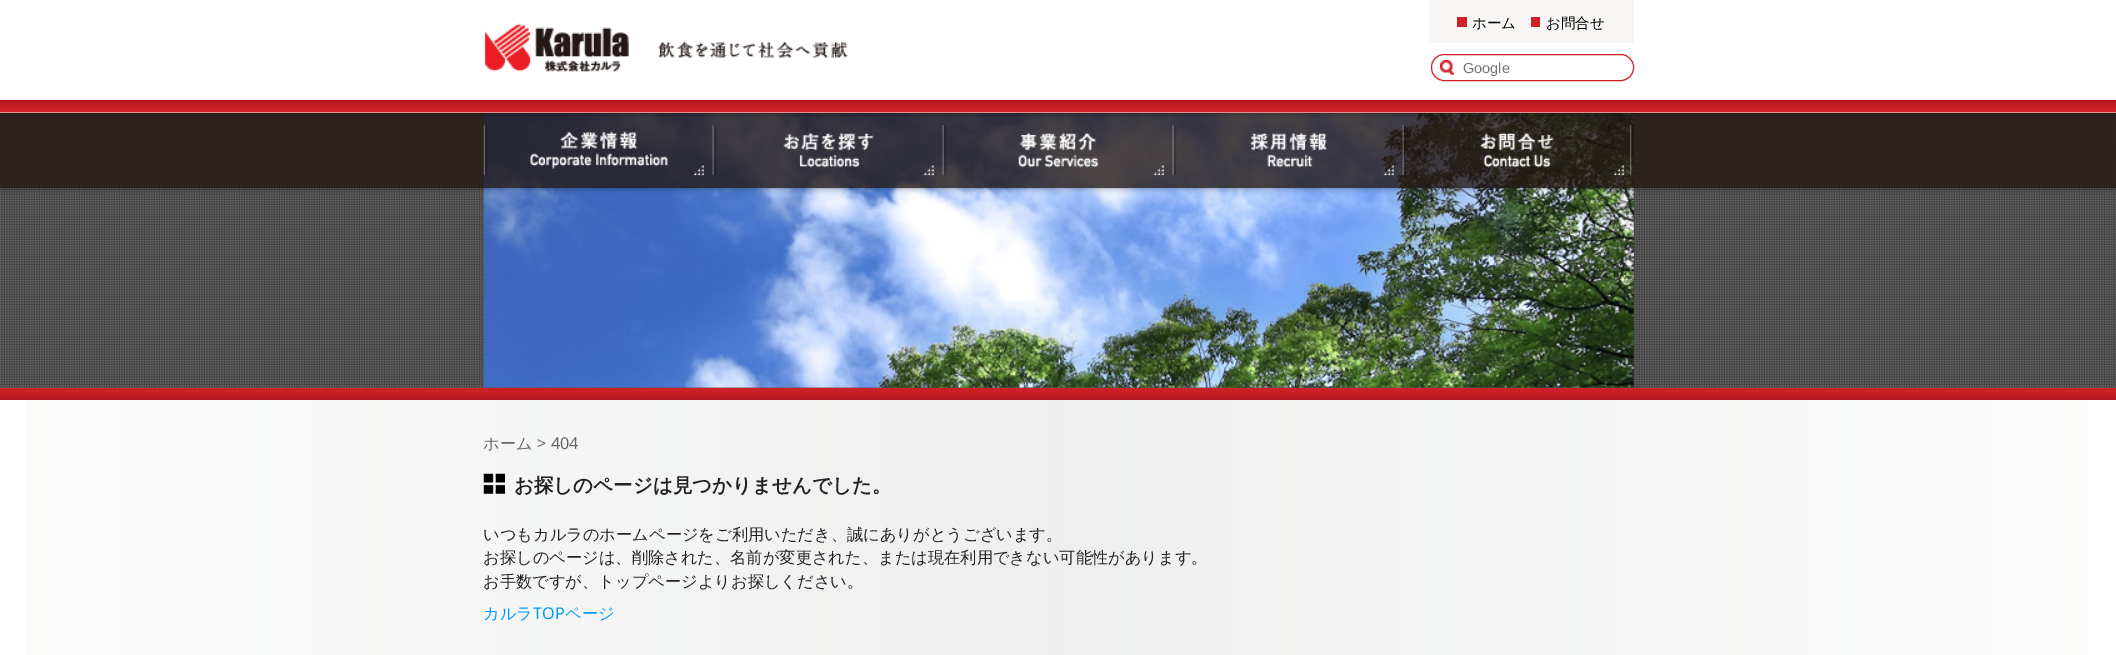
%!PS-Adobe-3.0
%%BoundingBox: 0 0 2116 655
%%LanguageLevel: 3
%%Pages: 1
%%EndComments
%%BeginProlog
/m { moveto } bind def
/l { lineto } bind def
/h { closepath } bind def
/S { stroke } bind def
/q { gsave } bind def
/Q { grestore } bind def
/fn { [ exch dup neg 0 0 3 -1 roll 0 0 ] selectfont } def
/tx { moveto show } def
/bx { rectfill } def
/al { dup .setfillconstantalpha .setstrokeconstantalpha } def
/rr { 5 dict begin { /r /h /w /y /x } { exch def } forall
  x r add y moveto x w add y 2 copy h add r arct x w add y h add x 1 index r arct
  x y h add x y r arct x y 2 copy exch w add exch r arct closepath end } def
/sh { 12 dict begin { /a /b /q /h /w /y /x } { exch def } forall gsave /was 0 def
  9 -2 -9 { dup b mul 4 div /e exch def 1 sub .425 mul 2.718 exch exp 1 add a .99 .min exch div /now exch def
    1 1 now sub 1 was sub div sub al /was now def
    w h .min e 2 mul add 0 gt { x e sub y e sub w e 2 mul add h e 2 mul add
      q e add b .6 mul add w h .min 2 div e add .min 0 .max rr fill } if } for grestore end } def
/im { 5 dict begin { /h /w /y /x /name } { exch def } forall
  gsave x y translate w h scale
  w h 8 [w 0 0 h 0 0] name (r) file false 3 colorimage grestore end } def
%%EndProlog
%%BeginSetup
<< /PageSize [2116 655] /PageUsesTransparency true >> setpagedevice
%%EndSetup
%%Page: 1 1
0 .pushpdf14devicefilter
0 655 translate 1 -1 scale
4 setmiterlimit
1 setgray
0 0 2116 655 bx
(image0.raw) 0 388 2116 12 im
0.4 setgray
0 113 2116 275 bx
(image9.raw) 0 113 2116 275 im
(image10.raw) 483 113 1151 275 im
q
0 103 m 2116 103 l 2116 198 l 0 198 l h 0 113 m 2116 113 l 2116 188 l 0 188 l h eoclip newpath
0 setgray
0 113 2116 75 0 3 0.4 sh
Q
0.8 al
0.137 0.094 0.082 setrgbcolor
0 113 2116 75 bx
1 al
0 setgray
0 0 2116 113 0 3 0.4 sh
1 setgray
0 0 2116 113 bx
(image1.raw) 0 100 2116 13 im
(image2.raw) 484 23 364 49 im
0.969 0.965 0.957 setrgbcolor
1429 0 205 43 bx
0.816 0.129 0.157 setrgbcolor
1457 17 10 10 bx
/WenQuanYiZenHei-Medium 14.5 fn
0 setgray
(ホーム) 1472 28 tx
0.816 0.129 0.157 setrgbcolor
1531 17 9 10 bx
0 setgray
(お問合せ) 1546 28 tx
0.816 0.129 0.157 setrgbcolor
1431.5 54.5 202 26 12.5 rr S
(image3.raw) 1440 60 14 15 im
/LiberationSans-Regular 14.5 fn
0.459 setgray
(Google) 1463 73 tx
(image4.raw) 483 125 231 51 im
(image5.raw) 713 125 231 51 im
(image6.raw) 943 125 231 51 im
(image7.raw) 1173 125 231 51 im
(image8.raw) 1403 125 231 51 im
(image11.raw) 27 400 2061 255 im
/WenQuanYiZenHei-Medium 16.25 fn
0.4 setgray
(ホーム) 483 449 tx
/NotoSans-Regular 16.25 fn
(> 404) 537 449 tx
(image12.raw) 483 473 22 21 im
/WenQuanYiZenHei-Bold 19.5 fn
0.133 setgray
(お探しのページは見つかりませんでした。) 514 492 tx
/WenQuanYiZenHei-Medium 16.25 fn
(いつもカルラのホームページをご利用いただき、誠にありがとうございます。) 483 540 tx
(お探しのページは、削除された、名前が変更された、または現在利用できない可能性があります。) 483 563 tx
(お手数ですが、トップページよりお探しください。) 483 587 tx
0 0.6 1 setrgbcolor
(カルラ) 483 619 tx
/NotoSans-Regular 16.25 fn
(TOP) 533 619 tx
/WenQuanYiZenHei-Medium 16.25 fn
(ページ) 565 619 tx
.poppdf14devicefilter showpage
%%EOF
